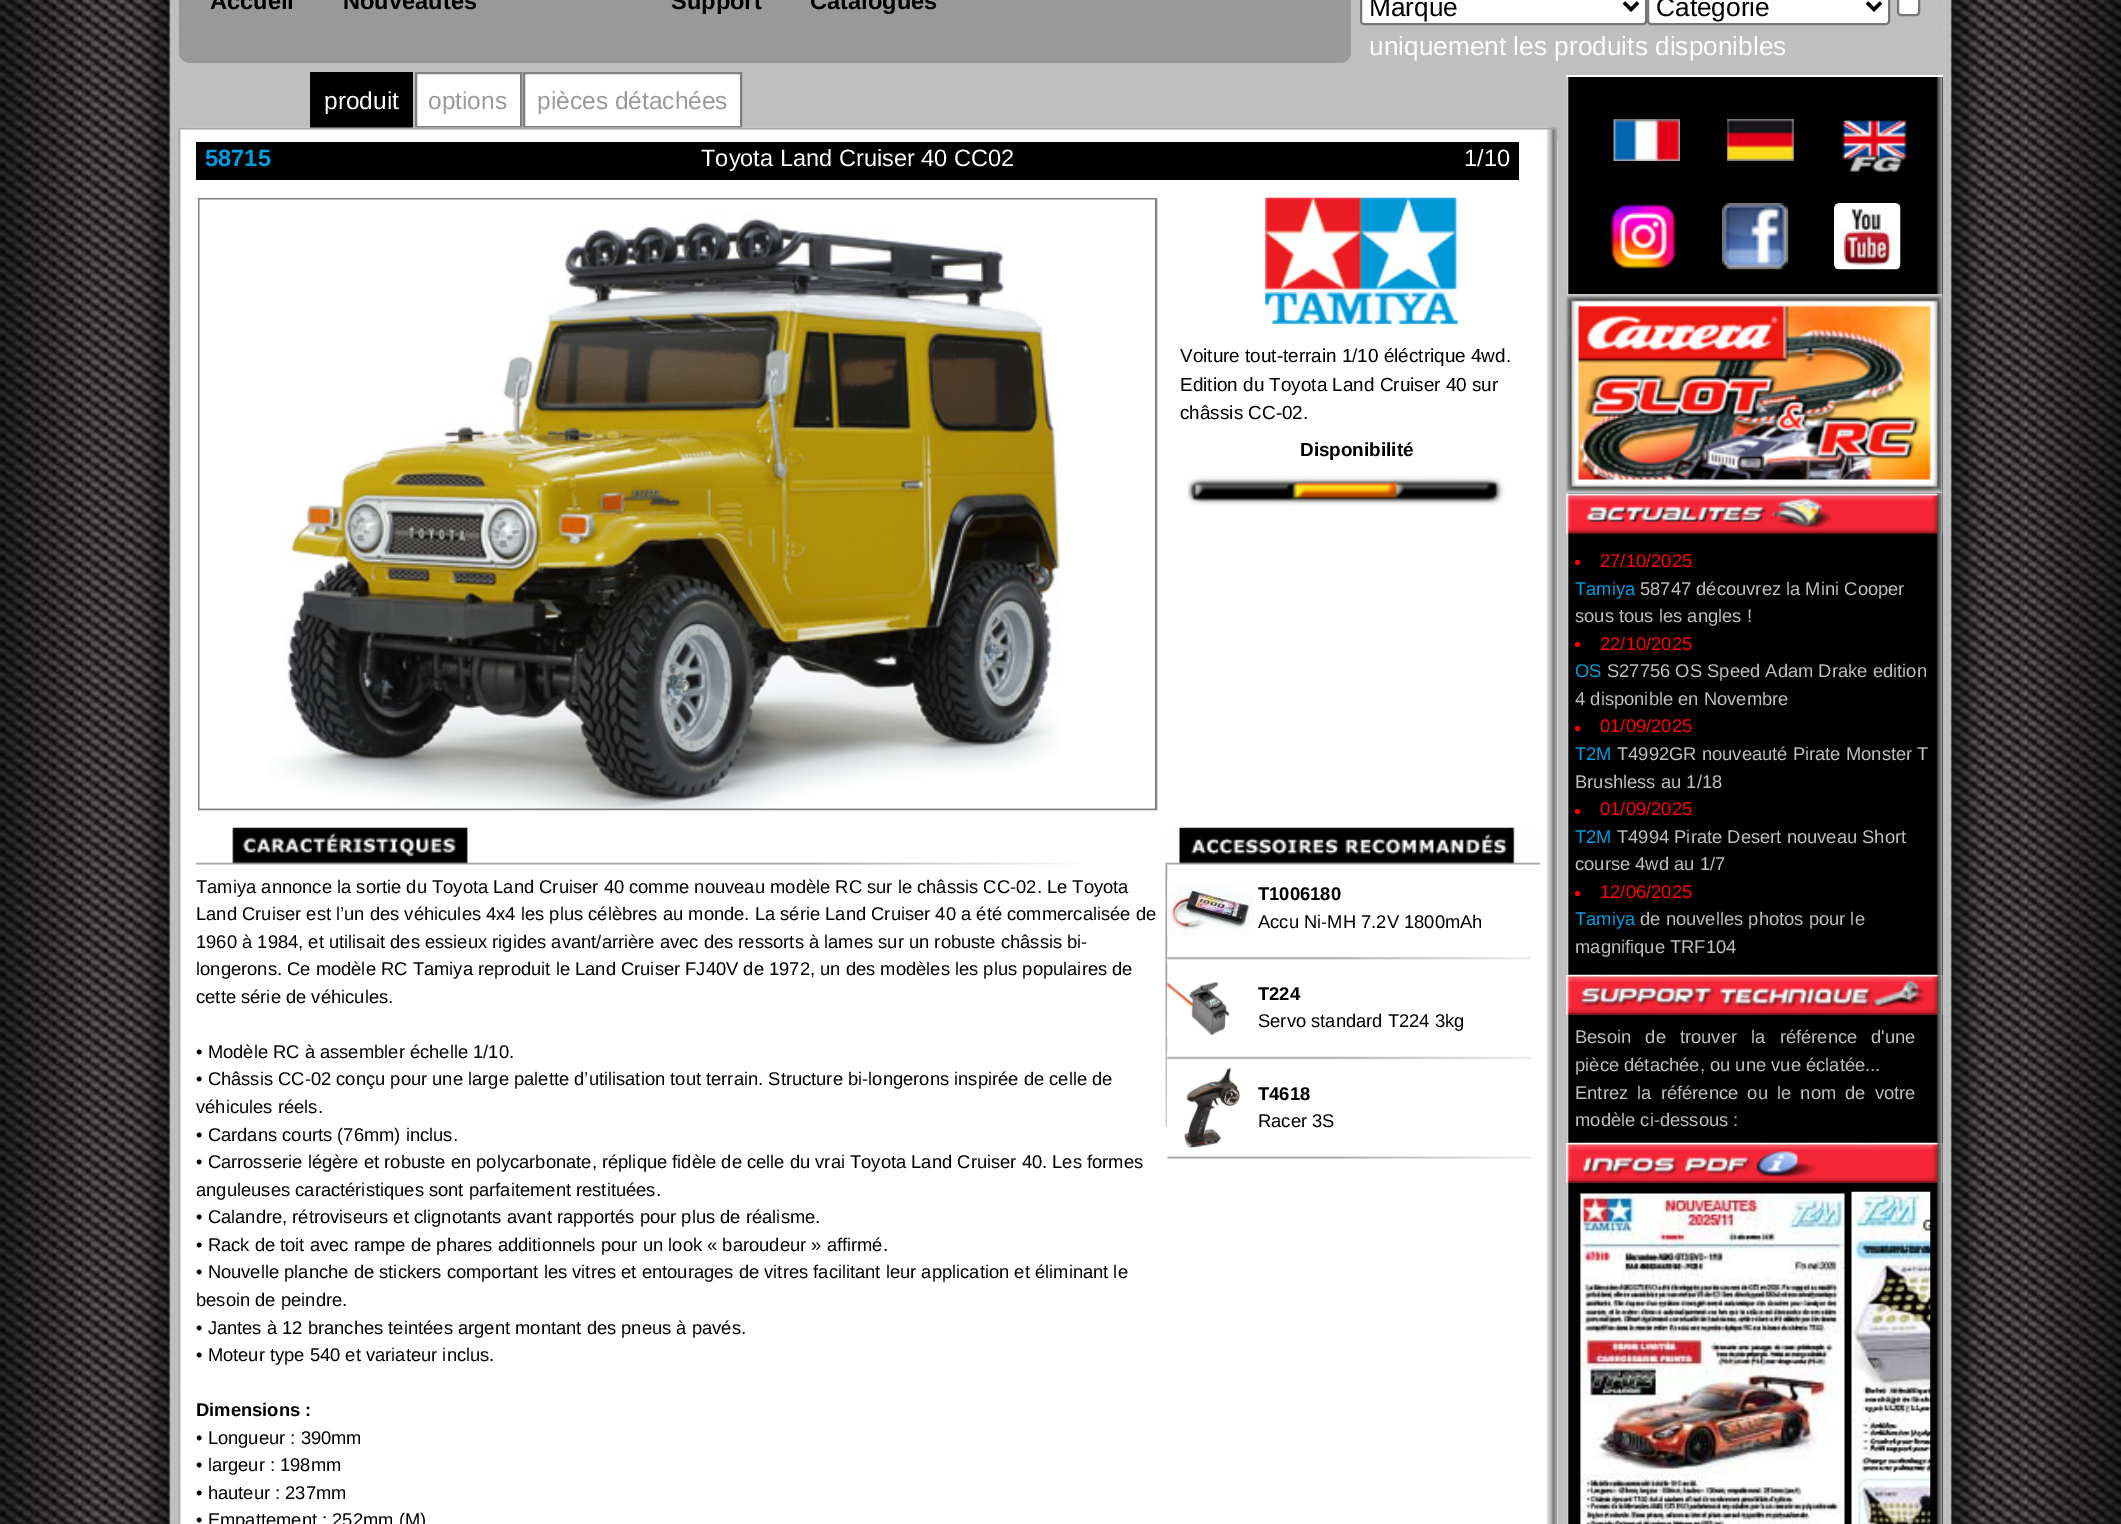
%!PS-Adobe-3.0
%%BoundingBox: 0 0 2121 1524
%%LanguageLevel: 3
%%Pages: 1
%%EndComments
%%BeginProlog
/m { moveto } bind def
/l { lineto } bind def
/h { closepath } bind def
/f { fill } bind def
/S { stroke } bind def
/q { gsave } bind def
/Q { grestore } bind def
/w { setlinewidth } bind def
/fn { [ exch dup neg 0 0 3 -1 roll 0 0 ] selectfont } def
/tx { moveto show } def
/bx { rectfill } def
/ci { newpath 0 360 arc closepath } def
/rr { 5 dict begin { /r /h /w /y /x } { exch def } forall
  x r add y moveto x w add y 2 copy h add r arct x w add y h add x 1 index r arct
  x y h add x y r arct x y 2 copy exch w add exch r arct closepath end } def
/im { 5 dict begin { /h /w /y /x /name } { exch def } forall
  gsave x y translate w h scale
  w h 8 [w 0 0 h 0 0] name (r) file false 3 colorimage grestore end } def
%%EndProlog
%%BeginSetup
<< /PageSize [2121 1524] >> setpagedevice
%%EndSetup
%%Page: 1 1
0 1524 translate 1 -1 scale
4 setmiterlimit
1 setgray
0 0 2121 1524 bx
(image0.raw) 0 0 2121 1524 im
0.745 setgray
1942 0 1 1521 bx
0.6 setgray
179 -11 1172 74 11 rr f
/LiberationSans-Bold 23.6 fn
0 setgray
(Accueil) 210 9 tx
(Nouveautés) 343 9 tx
(Support) 671 9 tx
(Catalogues) 810 9 tx
1 setgray
1361 -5 285 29 3 rr q f Q
0.463 setgray
2 w
S
0 setgray
3.5 w
1624 2.5 m 1631 9.5 l 1638 2.5 l S
/LiberationSans-Regular 26.25 fn
(Marque) 1369 16 tx
1 setgray
1648 -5 241 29 3 rr q f Q
0.463 setgray
2 w
S
0 setgray
3.5 w
1867 2.5 m 1874 9.5 l 1881 2.5 l S
(Categorie) 1656 16 tx
1 setgray
1898 -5 21 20 3 rr q f Q
0.463 setgray
2 w
S
1 setgray
(uniquement les produits disponibles) 1369 55 tx
0 setgray
310 72 103 56 bx
/LiberationSans-Regular 24.5 fn
1 setgray
(produit) 324 109 tx
416 73 m 521 73 l 521 127 l 416 127 l h q f Q
0.502 setgray
S
0.6 setgray
(options) 428 109 tx
1 setgray
524 73 m 741 73 l 741 127 l 524 127 l h q f Q
0.502 setgray
S
0.6 setgray
(pièces détachées) 537 109 tx
1 setgray
1557 128 1 1396 bx
(image1.raw) 178 127 1380 1397 im
(image2.raw) 178 127 1380 15 im
0 setgray
196 142 1323 38 bx
/LiberationSans-Bold 23.6 fn
0 0.62 0.878 setrgbcolor
(58715) 205 166 tx
/LiberationSans-Regular 23.6 fn
1 setgray
(Toyota Land Cruiser 40 CC02) 701 166 tx
(1/10) 1464 166 tx
0.502 setgray
199 199 957 610 rectstroke
(image3.raw) 199 199 956 610 im
(image4.raw) 1265 197 193 127 im
/LiberationSans-Regular 18.9 fn
0 setgray
(Voiture tout-terrain 1/10 éléctrique 4wd.) 1180 362 tx
(Edition du Toyota Land Cruiser 40 sur) 1180 391 tx
(châssis CC‐02.) 1180 419 tx
/LiberationSans-Bold 18.9 fn
(Disponibilité) 1300 456 tx
(image5.raw) 1186 472 319 34 im
(image6.raw) 196 827 882 38 im
/LiberationSans-Regular 18.38 fn
(Tamiya annonce la sortie du Toyota Land Cruiser 40 comme nouveau modèle RC sur le châssis CC-02. Le Toyota) 196 893 tx
(Land Cruiser est l’un des véhicules 4x4 les plus célèbres au monde. La série Land Cruiser 40 a été commercalisée de) 196 920 tx
(1960 à 1984, et utilisait des essieux rigides avant/arrière avec des ressorts à lames sur un robuste châssis bi-) 196 948 tx
(longerons. Ce modèle RC Tamiya reproduit le Land Cruiser FJ40V de 1972, un des modèles les plus populaires de) 196 975 tx
(cette série de véhicules.) 196 1003 tx
(• Modèle RC à assembler échelle 1/10.) 196 1058 tx
(• Châssis CC-02 conçu pour une large palette d’utilisation tout terrain. Structure bi-longerons inspirée de celle de) 196 1085 tx
(véhicules réels.) 196 1113 tx
(• Cardans courts \(76mm\) inclus.) 196 1141 tx
(• Carrosserie légère et robuste en polycarbonate, réplique fidèle de celle du vrai Toyota Land Cruiser 40. Les formes) 196 1168 tx
(anguleuses caractéristiques sont parfaitement restituées.) 196 1196 tx
(• Calandre, rétroviseurs et clignotants avant rapportés pour plus de réalisme.) 196 1223 tx
(• Rack de toit avec rampe de phares additionnels pour un look « baroudeur » affirmé.) 196 1251 tx
(• Nouvelle planche de stickers comportant les vitres et entourages de vitres facilitant leur application et éliminant le) 196 1278 tx
(besoin de peindre.) 196 1306 tx
(• Jantes à 12 branches teintées argent montant des pneus à pavés.) 196 1334 tx
(• Moteur type 540 et variateur inclus.) 196 1361 tx
/LiberationSans-Bold 18.38 fn
(Dimensions :) 196 1416 tx
/LiberationSans-Regular 18.38 fn
(• Longueur : 390mm) 196 1444 tx
(• largeur : 198mm) 196 1471 tx
(• hauteur : 237mm) 196 1499 tx
(• Empattement : 252mm \(M\)) 196 1526 tx
(image8.raw) 1165 864 3 263 im
(image7.raw) 1165 827 375 38 im
(image9.raw) 1167 880 88 57 im
/LiberationSans-Bold 18.38 fn
(T1006180) 1258 900 tx
/LiberationSans-Regular 18.38 fn
(Accu Ni-MH 7.2V 1800mAh) 1258 928 tx
(image10.raw) 1167 952 365 13 im
(image11.raw) 1167 980 63 56 im
/LiberationSans-Bold 18.38 fn
(T224) 1258 1000 tx
/LiberationSans-Regular 18.38 fn
(Servo standard T224 3kg) 1258 1027 tx
(image12.raw) 1167 1052 365 12 im
(image13.raw) 1167 1064 73 84 im
/LiberationSans-Bold 18.38 fn
(T4618) 1258 1100 tx
/LiberationSans-Regular 18.38 fn
(Racer 3S) 1258 1127 tx
(image14.raw) 1167 1156 365 3 im
1566 77 377 1447 bx
(image15.raw) 1566 77 377 217 im
1 setgray
1566 75 377 2 bx
(image16.raw) 1613 119 67 42 im
(image17.raw) 1727 119 67 42 im
(image18.raw) 1841 119 67 54 im
(image19.raw) 1611 204 65 65 im
(image20.raw) 1722 203 67 67 im
(image21.raw) 1834 203 67 67 im
(image22.raw) 1566 294 377 200 im
(image23.raw) 1566 294 377 200 im
(image24.raw) 1566 493 377 482 im
(image25.raw) 1566 493 377 41 im
1 0 0 setrgbcolor
1577.5 562.5 2.5 ci f
(27/10/2025) 1600 567 tx
0 0.62 0.878 setrgbcolor
(Tamiya) 1575 595 tx
0.753 setgray
(58747 découvrez la Mini Cooper) 1640 595 tx
(sous tous les angles !) 1575 622 tx
1 0 0 setrgbcolor
1577.5 644.5 2.5 ci f
(22/10/2025) 1600 650 tx
0 0.62 0.878 setrgbcolor
(OS) 1575 677 tx
0.753 setgray
(S27756 OS Speed Adam Drake edition) 1607 677 tx
(4 disponible en Novembre) 1575 705 tx
1 0 0 setrgbcolor
1577.5 728.5 2.5 ci f
(01/09/2025) 1600 732 tx
0 0.62 0.878 setrgbcolor
(T2M) 1575 760 tx
0.753 setgray
(T4992GR nouveauté Pirate Monster T) 1617 760 tx
(Brushless au 1/18) 1575 788 tx
1 0 0 setrgbcolor
1577.5 811.5 2.5 ci f
(01/09/2025) 1600 815 tx
0 0.62 0.878 setrgbcolor
(T2M) 1575 843 tx
0.753 setgray
(T4994 Pirate Desert nouveau Short) 1617 843 tx
(course 4wd au 1/7) 1575 870 tx
1 0 0 setrgbcolor
1577.5 893.5 2.5 ci f
(12/06/2025) 1600 898 tx
0 0.62 0.878 setrgbcolor
(Tamiya) 1575 925 tx
0.753 setgray
(de nouvelles photos pour le) 1640 925 tx
(magnifique TRF104) 1575 953 tx
(image26.raw) 1566 974 377 169 im
(image27.raw) 1566 974 377 41 im
1575 1043 m 9 0 32 (Besoin de trouver la référence d'une) widthshow
(pièce détachée, ou une vue éclatée...) 1575 1071 tx
1575 1099 m 4 0 32 (Entrez la référence ou le nom de votre) widthshow
(modèle ci-dessous :) 1575 1126 tx
(image28.raw) 1566 1142 377 382 im
(image29.raw) 1566 1142 377 41 im
(image30.raw) 1580 1193 265 331 im
(image31.raw) 1851 1191 80 333 im
showpage
%%EOF
